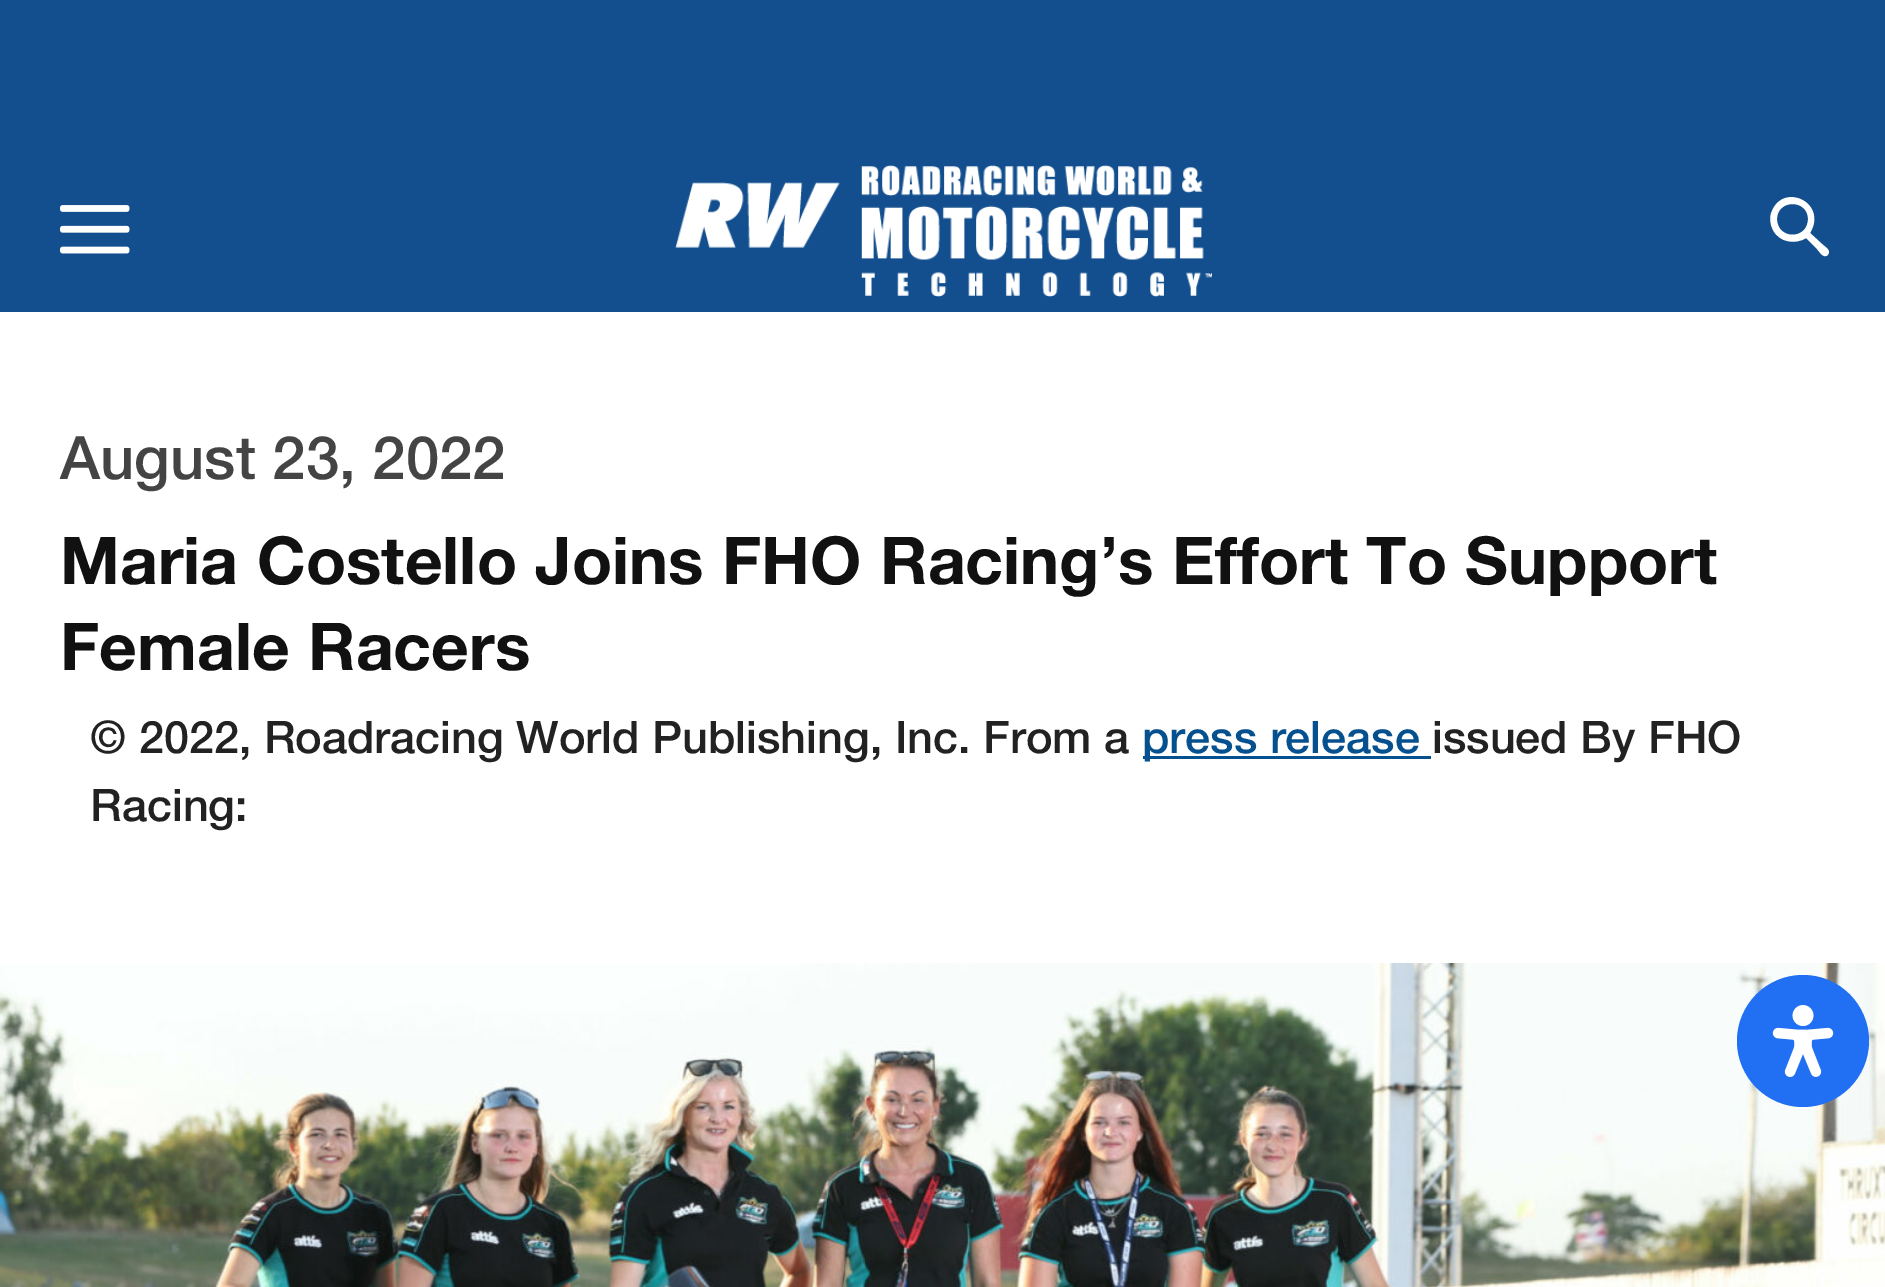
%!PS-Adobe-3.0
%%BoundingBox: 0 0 1885 1287
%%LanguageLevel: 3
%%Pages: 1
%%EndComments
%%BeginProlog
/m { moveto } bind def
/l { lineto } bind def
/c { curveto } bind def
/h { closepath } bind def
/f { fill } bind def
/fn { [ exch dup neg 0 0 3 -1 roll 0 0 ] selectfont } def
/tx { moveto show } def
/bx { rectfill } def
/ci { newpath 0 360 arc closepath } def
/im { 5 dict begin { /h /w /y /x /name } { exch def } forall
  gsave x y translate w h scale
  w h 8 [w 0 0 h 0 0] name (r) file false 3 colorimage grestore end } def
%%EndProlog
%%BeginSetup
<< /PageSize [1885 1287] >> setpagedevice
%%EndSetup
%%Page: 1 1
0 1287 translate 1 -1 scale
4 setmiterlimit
1 setgray
0 0 1885 1287 bx
0.075 0.31 0.557 setrgbcolor
0 0 1885 312 bx
(image0.raw) 60 205 70 49 im
(image1.raw) 675 165 537 132 im
1 setgray
1808 219 m 1808 240 1777 240 1777 219 c 1777 199 1808 199 1808 219 c h 1829 252 m 1829 249 1824 246 1822 244 c 1810 233 l 1828 203 1784 182 1772 211 c 1769 217 1770 224 1773 230 c 1779 242 1795 245 1806 238 c 1817 249 l 1819 251 1822 257 1826 256 c 1827 256 1829 254 1829 252 c h f
/HelveticaNeue-Medium 60 fn
0.267 setgray
(August 23, 2022) 60 479 tx
/HelveticaNeue-Bold 66 fn
0.067 setgray
(Maria Costello Joins FHO Racing’s Effort To Support) 60 584 tx
(Female Racers) 60 670 tx
/HelveticaNeue-Medium 45 fn
0.133 setgray
(© 2022, Roadracing World Publishing, Inc. From a) 90 753 tx
0.02 0.314 0.557 setrgbcolor
1143 756 288 3 bx
(press release) 1142 753 tx
0.133 setgray
(issued By FHO) 1432 753 tx
(Racing:) 90 821 tx
(image2.raw) 0 963 1885 324 im
0.129 0.435 0.953 setrgbcolor
1803 1041 66 ci f
(image3.raw) 1772 1005 62 72 im
showpage
%%EOF
